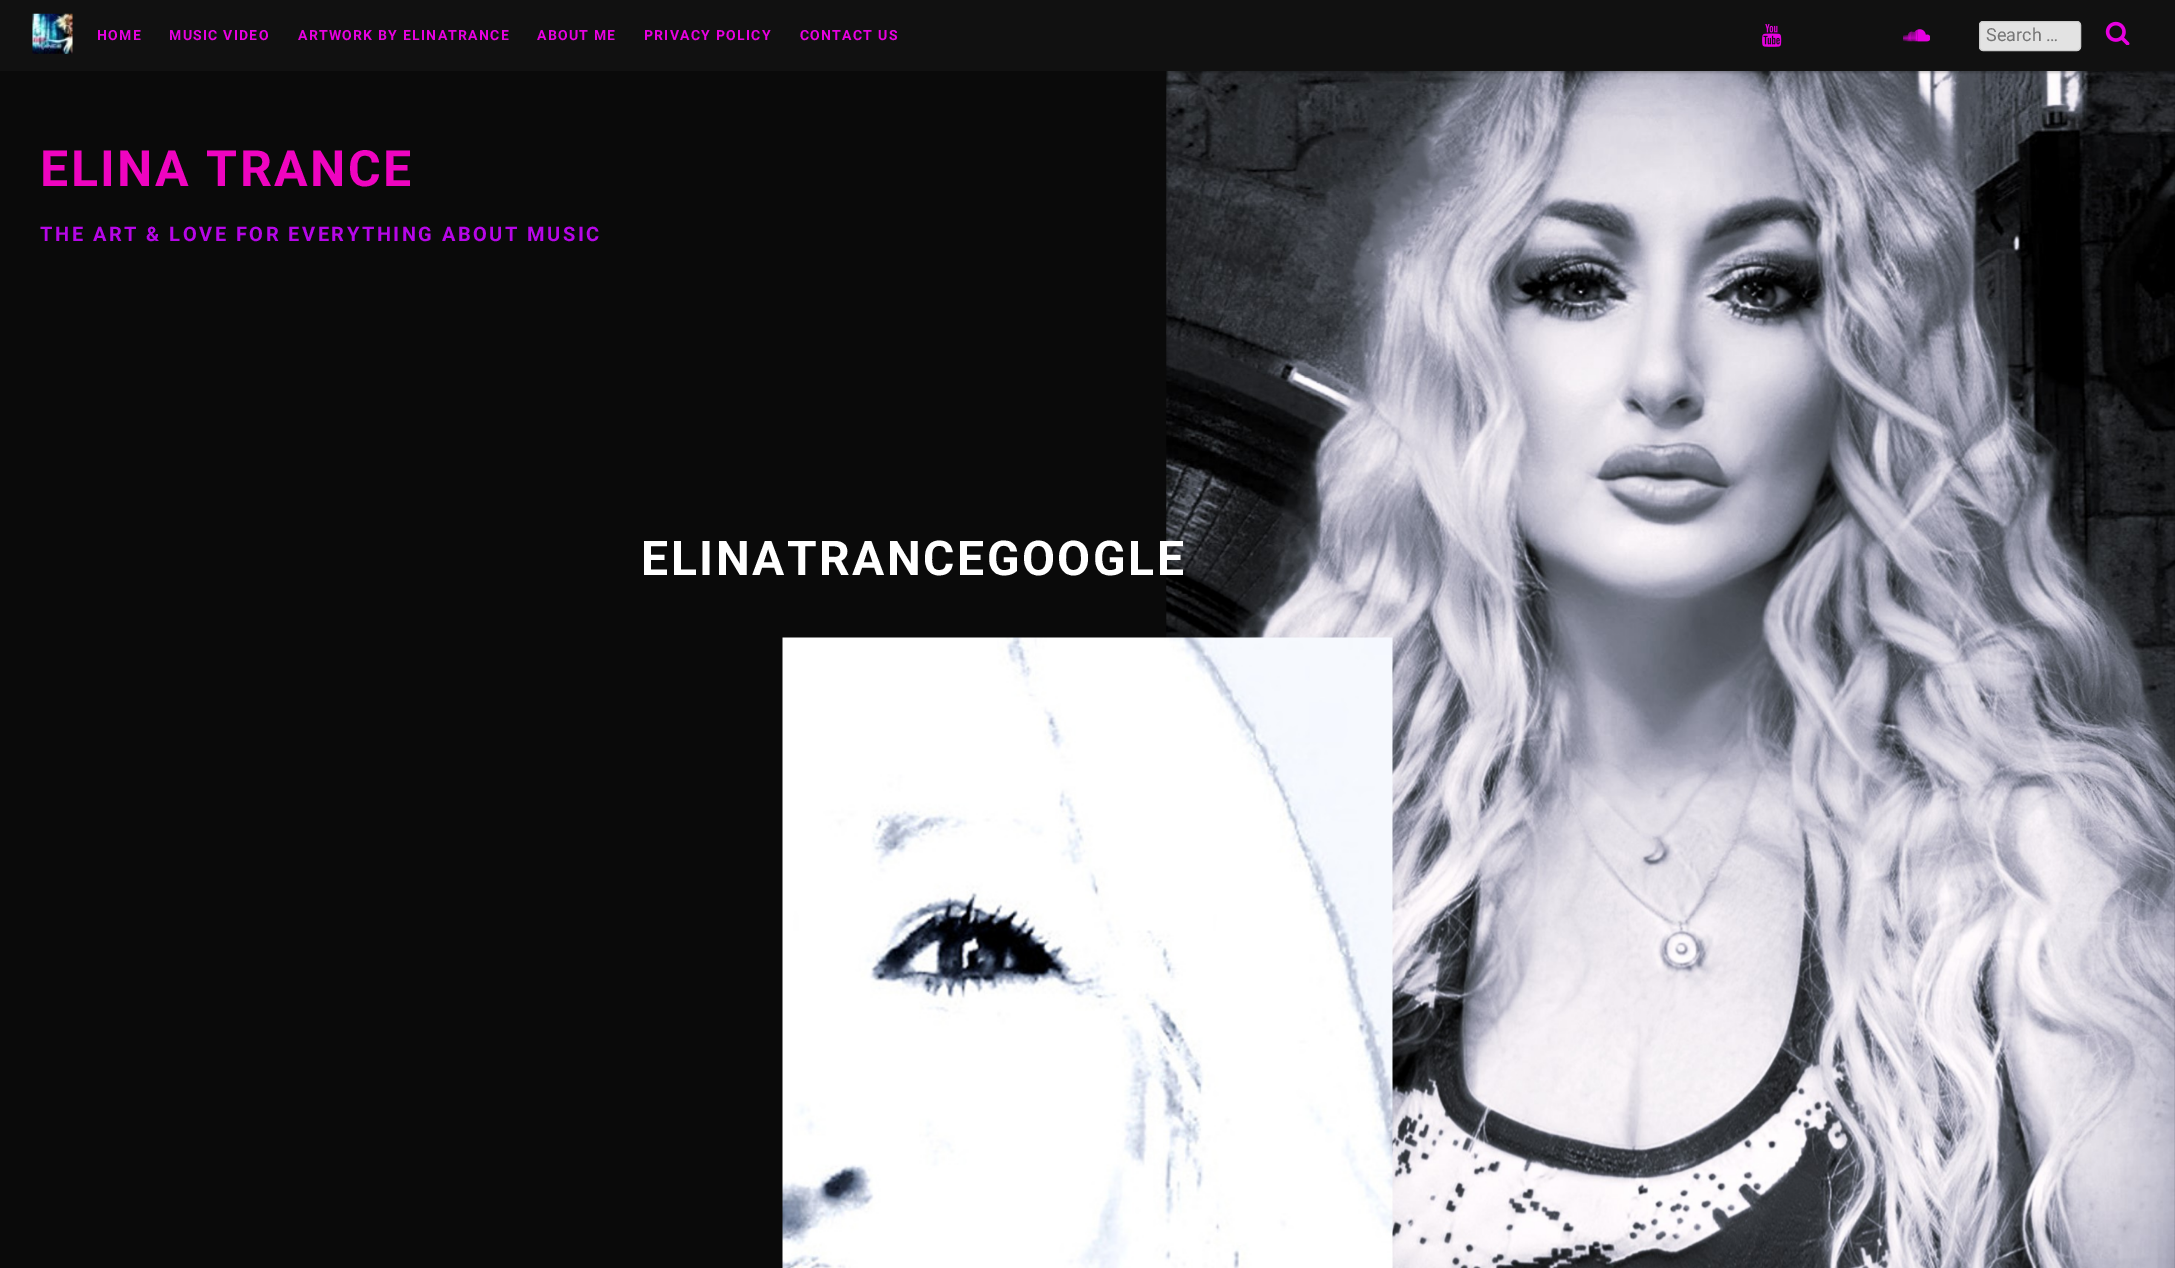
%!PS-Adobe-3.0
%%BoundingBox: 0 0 2175 1268
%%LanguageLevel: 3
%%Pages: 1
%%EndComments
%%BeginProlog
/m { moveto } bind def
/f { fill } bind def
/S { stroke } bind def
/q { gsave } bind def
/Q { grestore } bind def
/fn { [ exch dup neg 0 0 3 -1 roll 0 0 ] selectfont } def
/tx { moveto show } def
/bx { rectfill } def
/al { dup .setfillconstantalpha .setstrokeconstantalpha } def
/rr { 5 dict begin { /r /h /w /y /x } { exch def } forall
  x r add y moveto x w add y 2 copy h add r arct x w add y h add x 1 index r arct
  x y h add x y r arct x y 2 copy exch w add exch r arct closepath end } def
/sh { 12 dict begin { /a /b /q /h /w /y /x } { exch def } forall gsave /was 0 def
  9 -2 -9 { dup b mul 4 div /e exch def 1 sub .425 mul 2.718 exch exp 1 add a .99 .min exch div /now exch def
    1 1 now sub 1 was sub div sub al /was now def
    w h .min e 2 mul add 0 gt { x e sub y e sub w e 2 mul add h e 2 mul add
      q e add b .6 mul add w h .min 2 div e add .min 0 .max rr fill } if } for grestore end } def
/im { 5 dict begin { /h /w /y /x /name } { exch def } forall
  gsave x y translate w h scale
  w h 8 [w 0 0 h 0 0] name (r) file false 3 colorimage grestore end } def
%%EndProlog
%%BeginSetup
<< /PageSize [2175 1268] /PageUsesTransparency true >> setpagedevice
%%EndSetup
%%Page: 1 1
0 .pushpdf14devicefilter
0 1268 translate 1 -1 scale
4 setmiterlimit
0.039 setgray
0 0 2175 1268 bx
(image0.raw) 1166 71 1009 1197 im
0 setgray
0 1 2175 72 0 1 0.2 sh
0.067 setgray
0 0 2175 71 bx
(image1.raw) 32 13 41 41 im
/Roboto-Bold 14 fn
0.91 0 0.878 setrgbcolor
97 40 m 1.25 0 (HOME) ashow
169 40 m 1.25 0 (MUSIC VIDEO) ashow
298 40 m 1.25 0 (ARTWORK BY ELINATRANCE) ashow
537 40 m 1.25 0 (ABOUT ME) ashow
644 40 m 1.25 0 (PRIVACY POLICY) ashow
800 40 m 1.25 0 (CONTACT US) ashow
(image2.raw) 1762 24 20 23 im
(image3.raw) 1903 29 27 13 im
0.89 setgray
1979.5 21.5 101 29 3.5 rr q f Q
0.8 setgray
S
/Roboto-Regular 18 fn
0.459 setgray
(Search …) 1986 41 tx
(image4.raw) 2105 21 25 24 im
/Roboto-Bold 50 fn
0.937 0.016 0.753 setrgbcolor
40 186 m 2.5 0 (ELINA TRANCE) ashow
/Roboto-Bold 20 fn
0.718 0.024 0.91 setrgbcolor
40 241 m 2.5 0 (THE ART & LOVE FOR EVERYTHING ABOUT MUSIC) ashow
/Roboto-Bold 48 fn
1 setgray
641 575 m 2.5 0 (ELINATRANCEGOOGLE) ashow
(image5.raw) 782 637 611 631 im
.poppdf14devicefilter showpage
%%EOF
